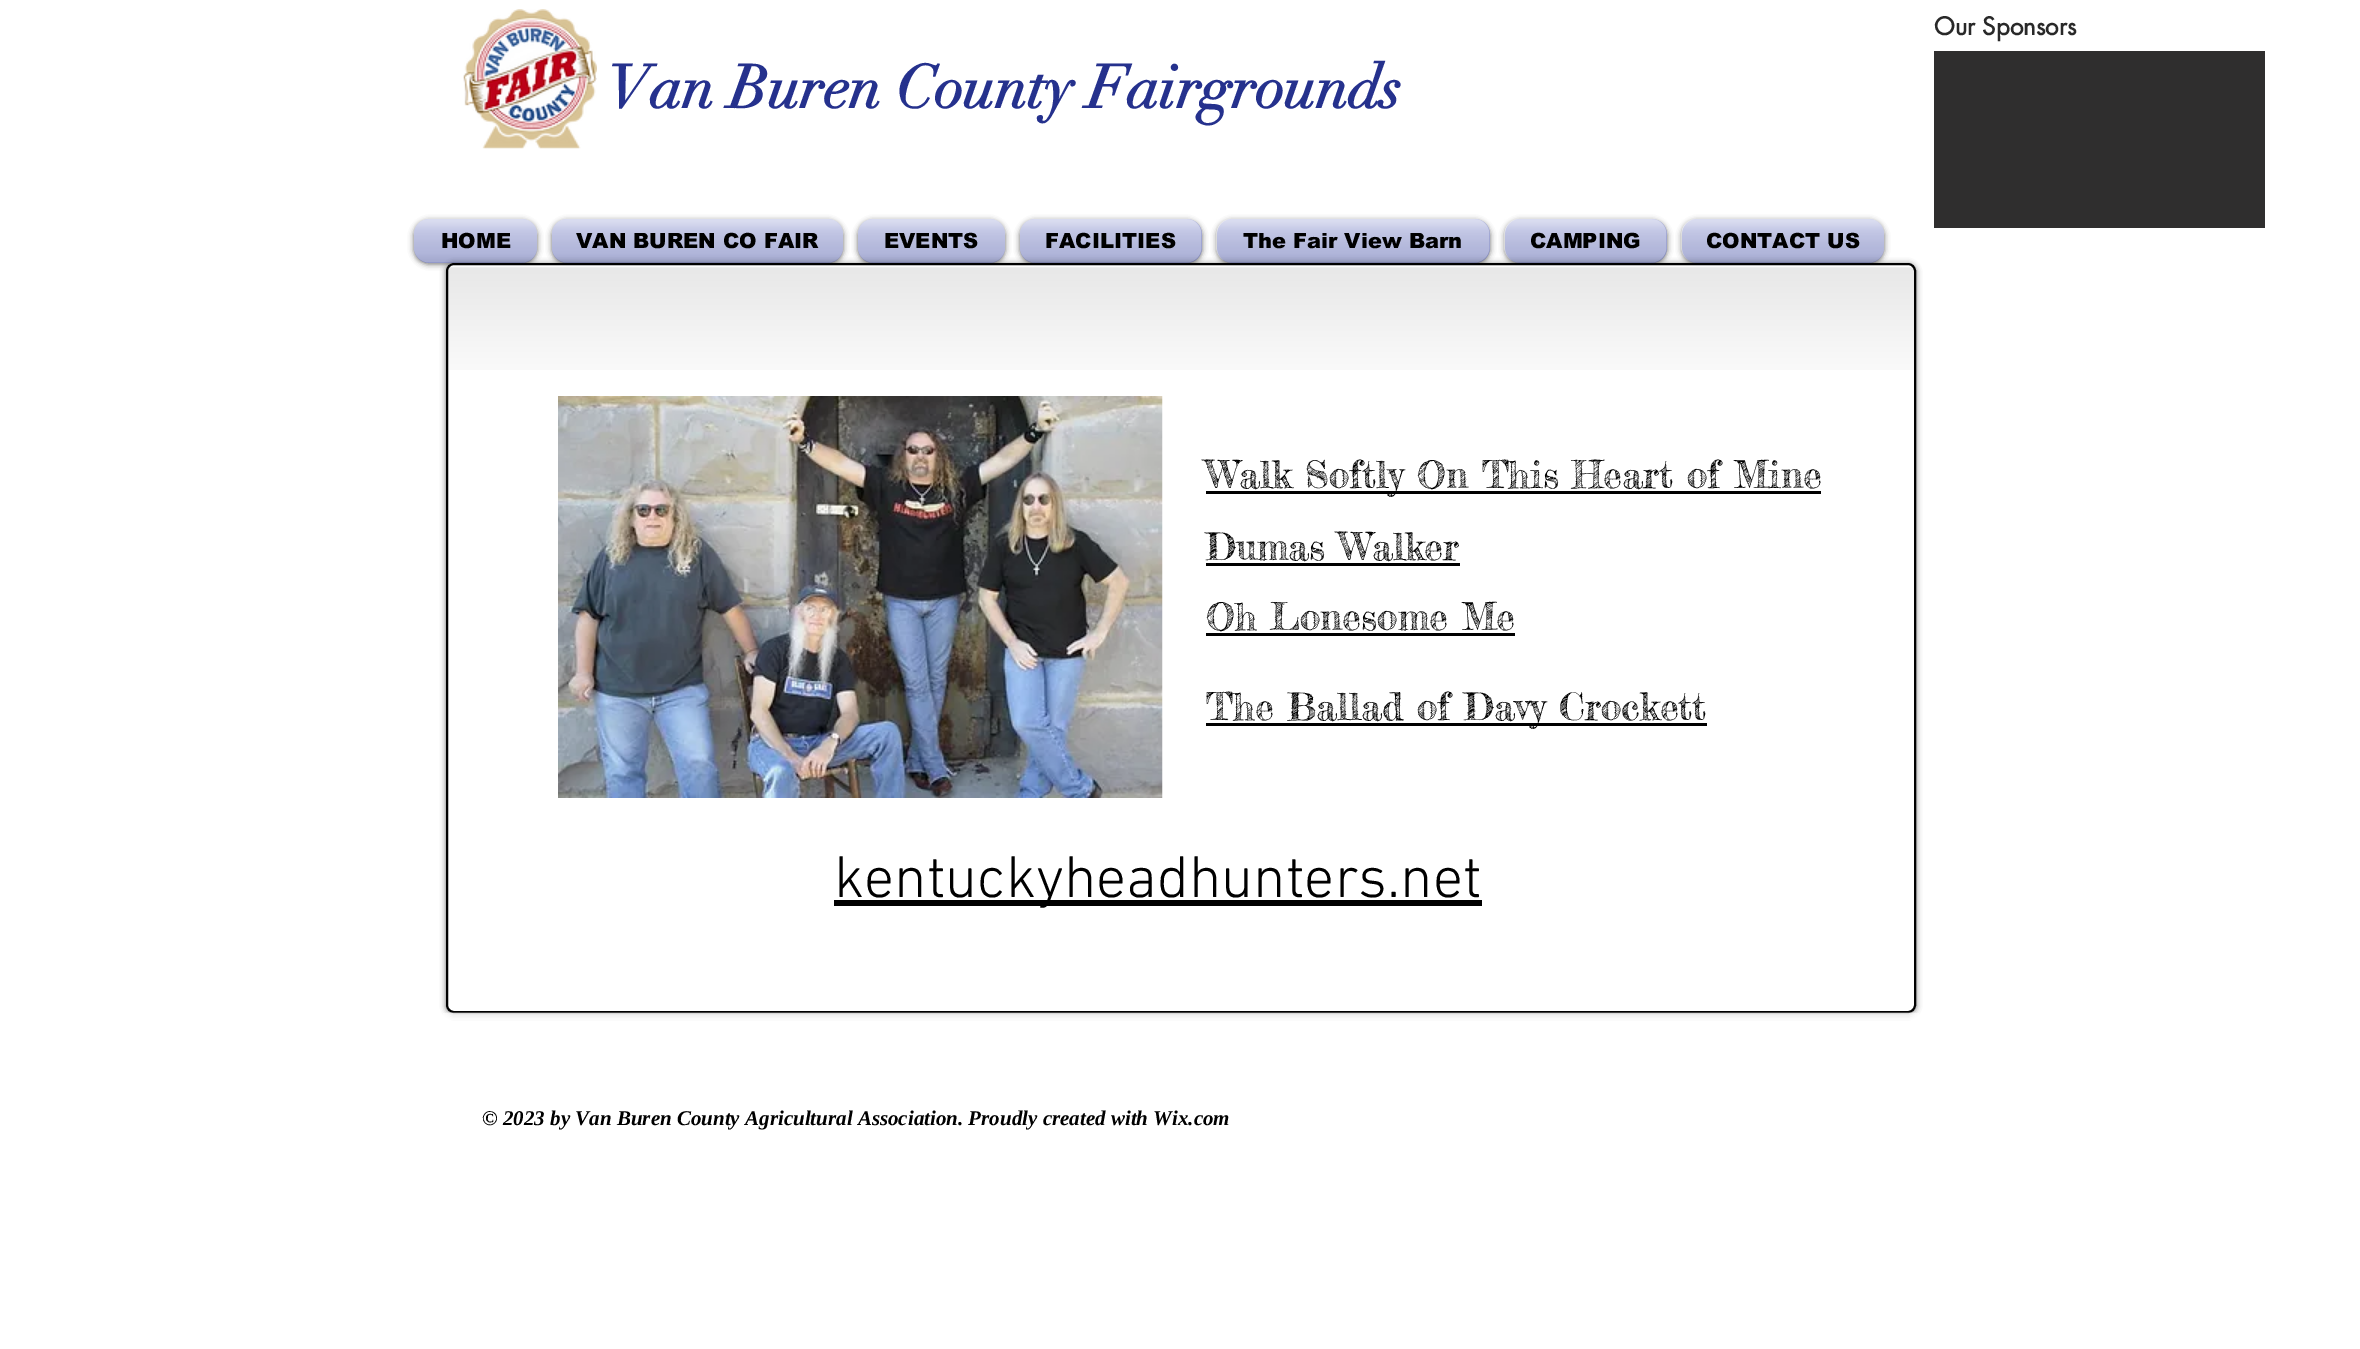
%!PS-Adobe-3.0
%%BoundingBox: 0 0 2360 1349
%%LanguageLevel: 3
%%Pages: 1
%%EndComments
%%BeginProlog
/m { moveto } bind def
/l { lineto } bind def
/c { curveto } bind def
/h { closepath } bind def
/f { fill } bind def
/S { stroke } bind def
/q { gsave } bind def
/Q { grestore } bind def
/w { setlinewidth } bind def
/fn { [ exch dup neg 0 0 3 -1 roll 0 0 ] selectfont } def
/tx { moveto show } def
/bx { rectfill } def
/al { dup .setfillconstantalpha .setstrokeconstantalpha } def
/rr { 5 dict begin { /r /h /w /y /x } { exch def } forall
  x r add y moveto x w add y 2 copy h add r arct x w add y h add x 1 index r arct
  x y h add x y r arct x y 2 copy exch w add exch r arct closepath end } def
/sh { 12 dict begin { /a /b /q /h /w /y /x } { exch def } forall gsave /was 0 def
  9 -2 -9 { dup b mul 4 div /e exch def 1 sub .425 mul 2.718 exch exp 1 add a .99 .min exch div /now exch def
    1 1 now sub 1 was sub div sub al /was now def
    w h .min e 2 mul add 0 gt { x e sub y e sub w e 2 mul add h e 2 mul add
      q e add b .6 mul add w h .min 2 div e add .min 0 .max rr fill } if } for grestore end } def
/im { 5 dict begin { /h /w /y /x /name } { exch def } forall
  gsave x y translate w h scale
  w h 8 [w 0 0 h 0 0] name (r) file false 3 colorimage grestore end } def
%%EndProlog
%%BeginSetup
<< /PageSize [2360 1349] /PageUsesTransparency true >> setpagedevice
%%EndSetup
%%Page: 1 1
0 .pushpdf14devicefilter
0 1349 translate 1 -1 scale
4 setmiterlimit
1 setgray
0 0 2360 1349 bx
(image0.raw) 463 9 134 140 im
/futura-Bold 24 fn
0.161 setgray
(Our Sponsors) 1934 35 tx
/didot-Bold 60 fn
0.145 0.192 0.553 setrgbcolor
(Van Buren County Fairgrounds) 608 108 tx
0.184 0.18 0.18 setrgbcolor
1934 51 331 177 bx
q
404 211 m 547 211 l 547 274 l 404 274 l h 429 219 m 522 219 l 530.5 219 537 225.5 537 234 c 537 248 l 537 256.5 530.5 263 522 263 c 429 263 l 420.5 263 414 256.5 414 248 c 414 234 l 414 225.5 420.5 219 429 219 c h eoclip newpath
0 setgray
414 221 123 43 15 3 0.6 sh
Q
0.36 al
0.22 0.29 0.827 setrgbcolor
414 219 123 44 15 rr f
1 al
(image1.raw) 414 219 123 43 im
(image2.raw) 414 219 123 44 im
/arial-Black 21 fn
0 setgray
(HOME) 441 248 tx
q
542 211 m 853 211 l 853 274 l 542 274 l h 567 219 m 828 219 l 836.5 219 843 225.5 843 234 c 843 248 l 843 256.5 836.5 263 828 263 c 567 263 l 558.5 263 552 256.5 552 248 c 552 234 l 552 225.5 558.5 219 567 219 c h eoclip newpath
552 221 291 43 15 3 0.6 sh
Q
0.36 al
0.22 0.29 0.827 setrgbcolor
552 219 291 44 15 rr f
1 al
(image3.raw) 552 219 291 43 im
(image4.raw) 552 219 291 44 im
0 setgray
(VAN BUREN CO FAIR) 576 248 tx
q
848 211 m 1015 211 l 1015 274 l 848 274 l h 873 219 m 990 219 l 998.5 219 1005 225.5 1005 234 c 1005 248 l 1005 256.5 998.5 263 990 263 c 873 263 l 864.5 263 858 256.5 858 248 c 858 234 l 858 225.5 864.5 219 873 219 c h eoclip newpath
858 221 147 43 15 3 0.6 sh
Q
0.36 al
0.22 0.29 0.827 setrgbcolor
858 219 147 44 15 rr f
1 al
(image5.raw) 858 219 147 43 im
(image6.raw) 858 219 147 44 im
0 setgray
(EVENTS) 884 248 tx
q
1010 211 m 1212 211 l 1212 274 l 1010 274 l h 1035 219 m 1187 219 l 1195.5 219 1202 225.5 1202 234 c 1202 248 l 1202 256.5 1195.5 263 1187 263 c 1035 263 l 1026.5 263 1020 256.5 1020 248 c 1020 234 l 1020 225.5 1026.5 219 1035 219 c h eoclip newpath
1020 221 182 43 15 3 0.6 sh
Q
0.36 al
0.22 0.29 0.827 setrgbcolor
1020 219 182 44 15 rr f
1 al
(image7.raw) 1020 219 182 43 im
(image8.raw) 1020 219 182 44 im
0 setgray
(FACILITIES) 1045 248 tx
q
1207 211 m 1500 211 l 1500 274 l 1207 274 l h 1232 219 m 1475 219 l 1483.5 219 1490 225.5 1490 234 c 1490 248 l 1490 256.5 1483.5 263 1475 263 c 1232 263 l 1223.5 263 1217 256.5 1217 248 c 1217 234 l 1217 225.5 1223.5 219 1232 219 c h eoclip newpath
1217 221 273 43 15 3 0.6 sh
Q
0.36 al
0.22 0.29 0.827 setrgbcolor
1217 219 273 44 15 rr f
1 al
(image9.raw) 1217 219 273 43 im
(image10.raw) 1216 219 274 44 im
0 setgray
(The Fair View Barn) 1243 248 tx
q
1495 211 m 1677 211 l 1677 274 l 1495 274 l h 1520 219 m 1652 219 l 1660.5 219 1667 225.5 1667 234 c 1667 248 l 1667 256.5 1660.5 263 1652 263 c 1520 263 l 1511.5 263 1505 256.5 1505 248 c 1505 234 l 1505 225.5 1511.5 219 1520 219 c h eoclip newpath
1505 221 162 43 15 3 0.6 sh
Q
0.36 al
0.22 0.29 0.827 setrgbcolor
1505 219 162 44 15 rr f
1 al
(image11.raw) 1505 219 162 43 im
(image12.raw) 1504 219 163 44 im
0 setgray
(CAMPING) 1530 248 tx
q
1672 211 m 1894 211 l 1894 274 l 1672 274 l h 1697 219 m 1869 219 l 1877.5 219 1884 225.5 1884 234 c 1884 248 l 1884 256.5 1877.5 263 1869 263 c 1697 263 l 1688.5 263 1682 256.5 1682 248 c 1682 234 l 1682 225.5 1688.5 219 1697 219 c h eoclip newpath
1682 221 202 43 15 3 0.6 sh
Q
0.36 al
0.22 0.29 0.827 setrgbcolor
1682 219 202 44 15 rr f
1 al
(image13.raw) 1682 219 202 43 im
(image14.raw) 1681 219 203 44 im
0 setgray
(CONTACT US) 1706 248 tx
q
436 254 m 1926 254 l 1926 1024 l 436 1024 l h 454 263 m 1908 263 l 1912.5 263 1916 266.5 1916 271 c 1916 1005 l 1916 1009.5 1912.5 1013 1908 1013 c 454 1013 l 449.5 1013 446 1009.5 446 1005 c 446 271 l 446 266.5 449.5 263 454 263 c h eoclip newpath
446 264 1470 750 8 3 0.6 sh
Q
0.98 al
1 setgray
446 263 1470 750 8 rr f
1 al
(image15.raw) 446 267 1469 103 im
0 setgray
2 w
447 264 1468 748 7 rr S
(image16.raw) 558 396 605 402 im
1206 491 615 3 bx
/FrederickatheGreat-Regular 37.5 fn
(Walk Softly On This Heart of Mine) 1206 488 tx
(Dumas Walker) 1206 560 tx
1206 563 254 3 bx
(Oh Lonesome Me) 1206 630 tx
1206 633 309 3 bx
1206 723 501 3 bx
(The Ballad of Davy Crockett) 1206 720 tx
834 900 648 6 bx
/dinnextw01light-Light 60 fn
(kentuckyheadhunters.net) 834 897 tx
0.6 al
1 setgray
443 1013 1476 7 bx
0.25 al
446 1012 1470 4 bx
/LiberationSerif-BoldItalic 21 fn
1 al
0 setgray
(© 2023 by Van Buren County Agricultural Association. Proudly created with Wix.com) 482 1125 tx
.poppdf14devicefilter showpage
%%EOF
